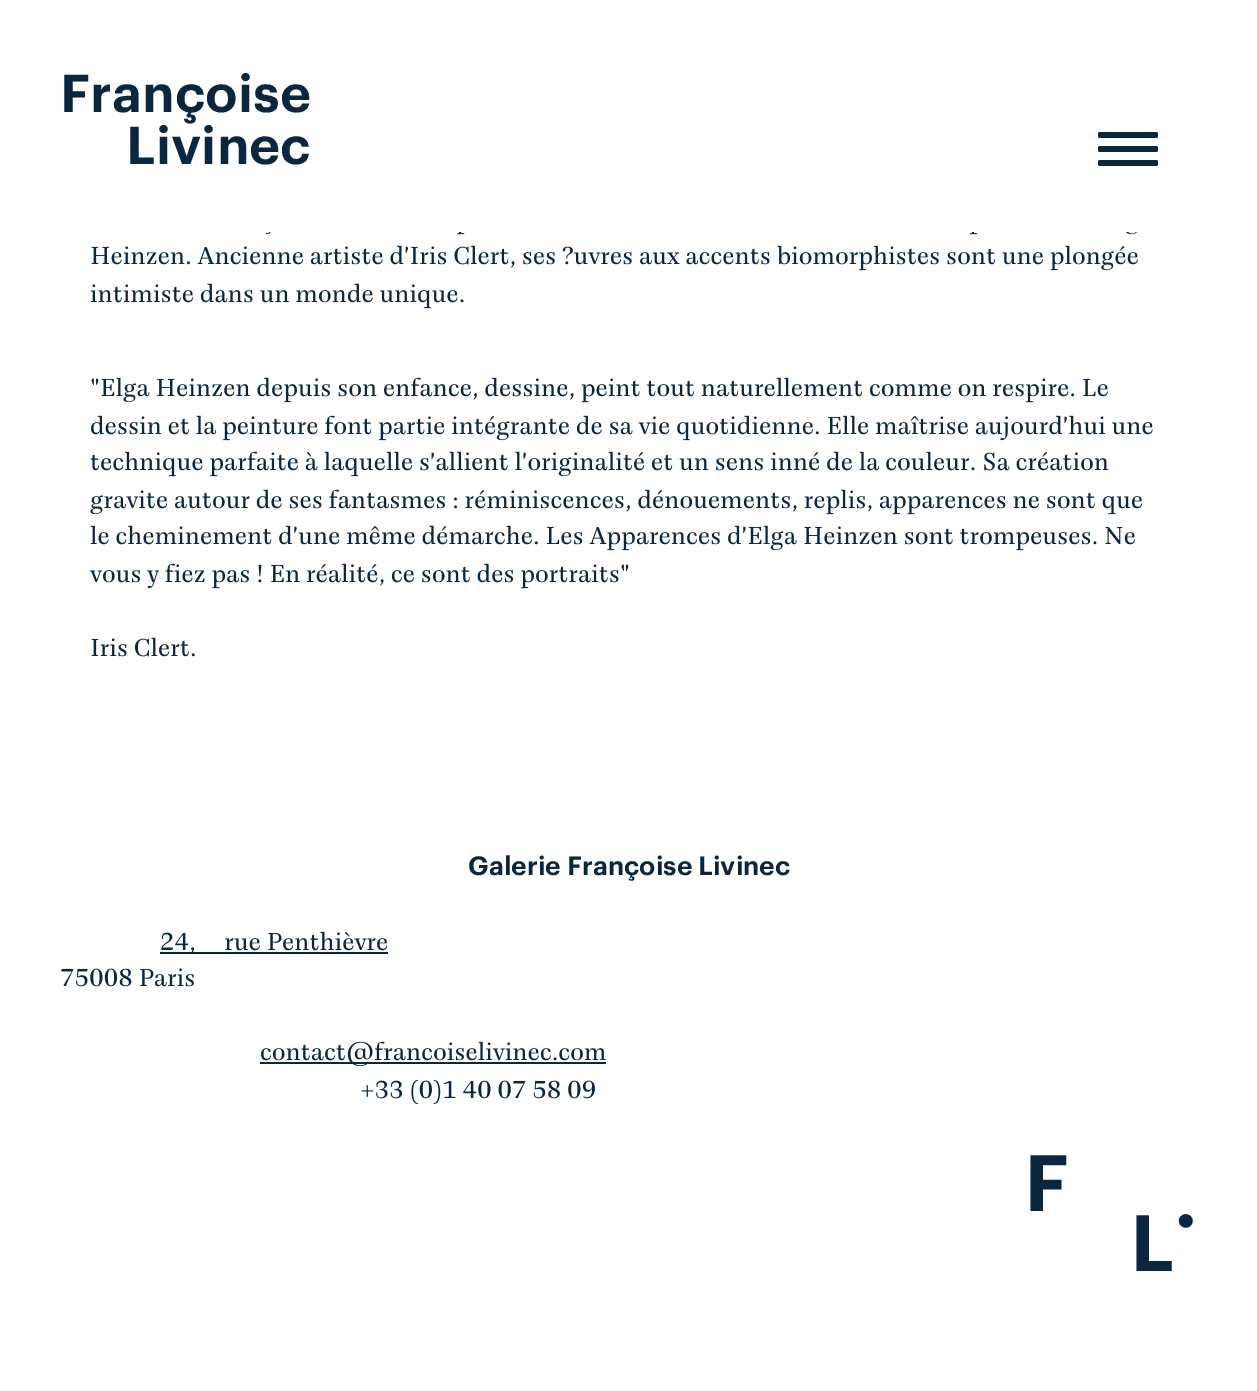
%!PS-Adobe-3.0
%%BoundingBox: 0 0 1257 1391
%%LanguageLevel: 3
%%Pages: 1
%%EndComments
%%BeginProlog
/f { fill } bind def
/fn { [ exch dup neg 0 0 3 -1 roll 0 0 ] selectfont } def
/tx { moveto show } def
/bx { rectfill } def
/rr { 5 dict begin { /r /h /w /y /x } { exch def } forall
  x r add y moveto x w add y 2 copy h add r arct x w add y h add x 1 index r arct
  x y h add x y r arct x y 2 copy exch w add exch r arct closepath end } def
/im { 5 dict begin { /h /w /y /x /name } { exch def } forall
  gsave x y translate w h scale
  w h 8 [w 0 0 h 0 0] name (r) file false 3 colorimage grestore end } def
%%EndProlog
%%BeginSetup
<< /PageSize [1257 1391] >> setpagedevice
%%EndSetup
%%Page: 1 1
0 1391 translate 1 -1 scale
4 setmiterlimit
1 setgray
0 0 1257 1391 bx
/Graphik-SemiBold 52 fn
0.043 0.153 0.247 setrgbcolor
(Françoise) 60 112 tx
(Livinec) 126 164 tx
1098 132 60 6 2 rr f
1098 146 60 6 2 rr f
1098 160 60 6 2 rr f
(image0.raw) 265 232 200 3 im
(image1.raw) 970 232 167 3 im
(image2.raw) 91 245 1047 26 im
(image3.raw) 90 283 374 26 im
(image4.raw) 91 377 1017 26 im
(image5.raw) 91 415 1062 26 im
(image6.raw) 90 451 1019 26 im
(image7.raw) 90 489 1053 26 im
(image8.raw) 90 525 1045 26 im
(image9.raw) 89 563 540 26 im
(image10.raw) 91 637 104 20 im
/Graphik-SemiBold 26 fn
(Galerie Françoise Livinec) 468 875 tx
(image11.raw) 161 931 227 21 im
160 952 228 2 bx
(image12.raw) 61 968 133 19 im
260 1062 346 2 bx
(image13.raw) 261 1041 345 26 im
(image14.raw) 361 1079 234 26 im
/Graphik-SemiBold 78 fn
(F) 1024 1211 tx
(L) 1130 1271 tx
(.) 1174 1227 tx
showpage
%%EOF
